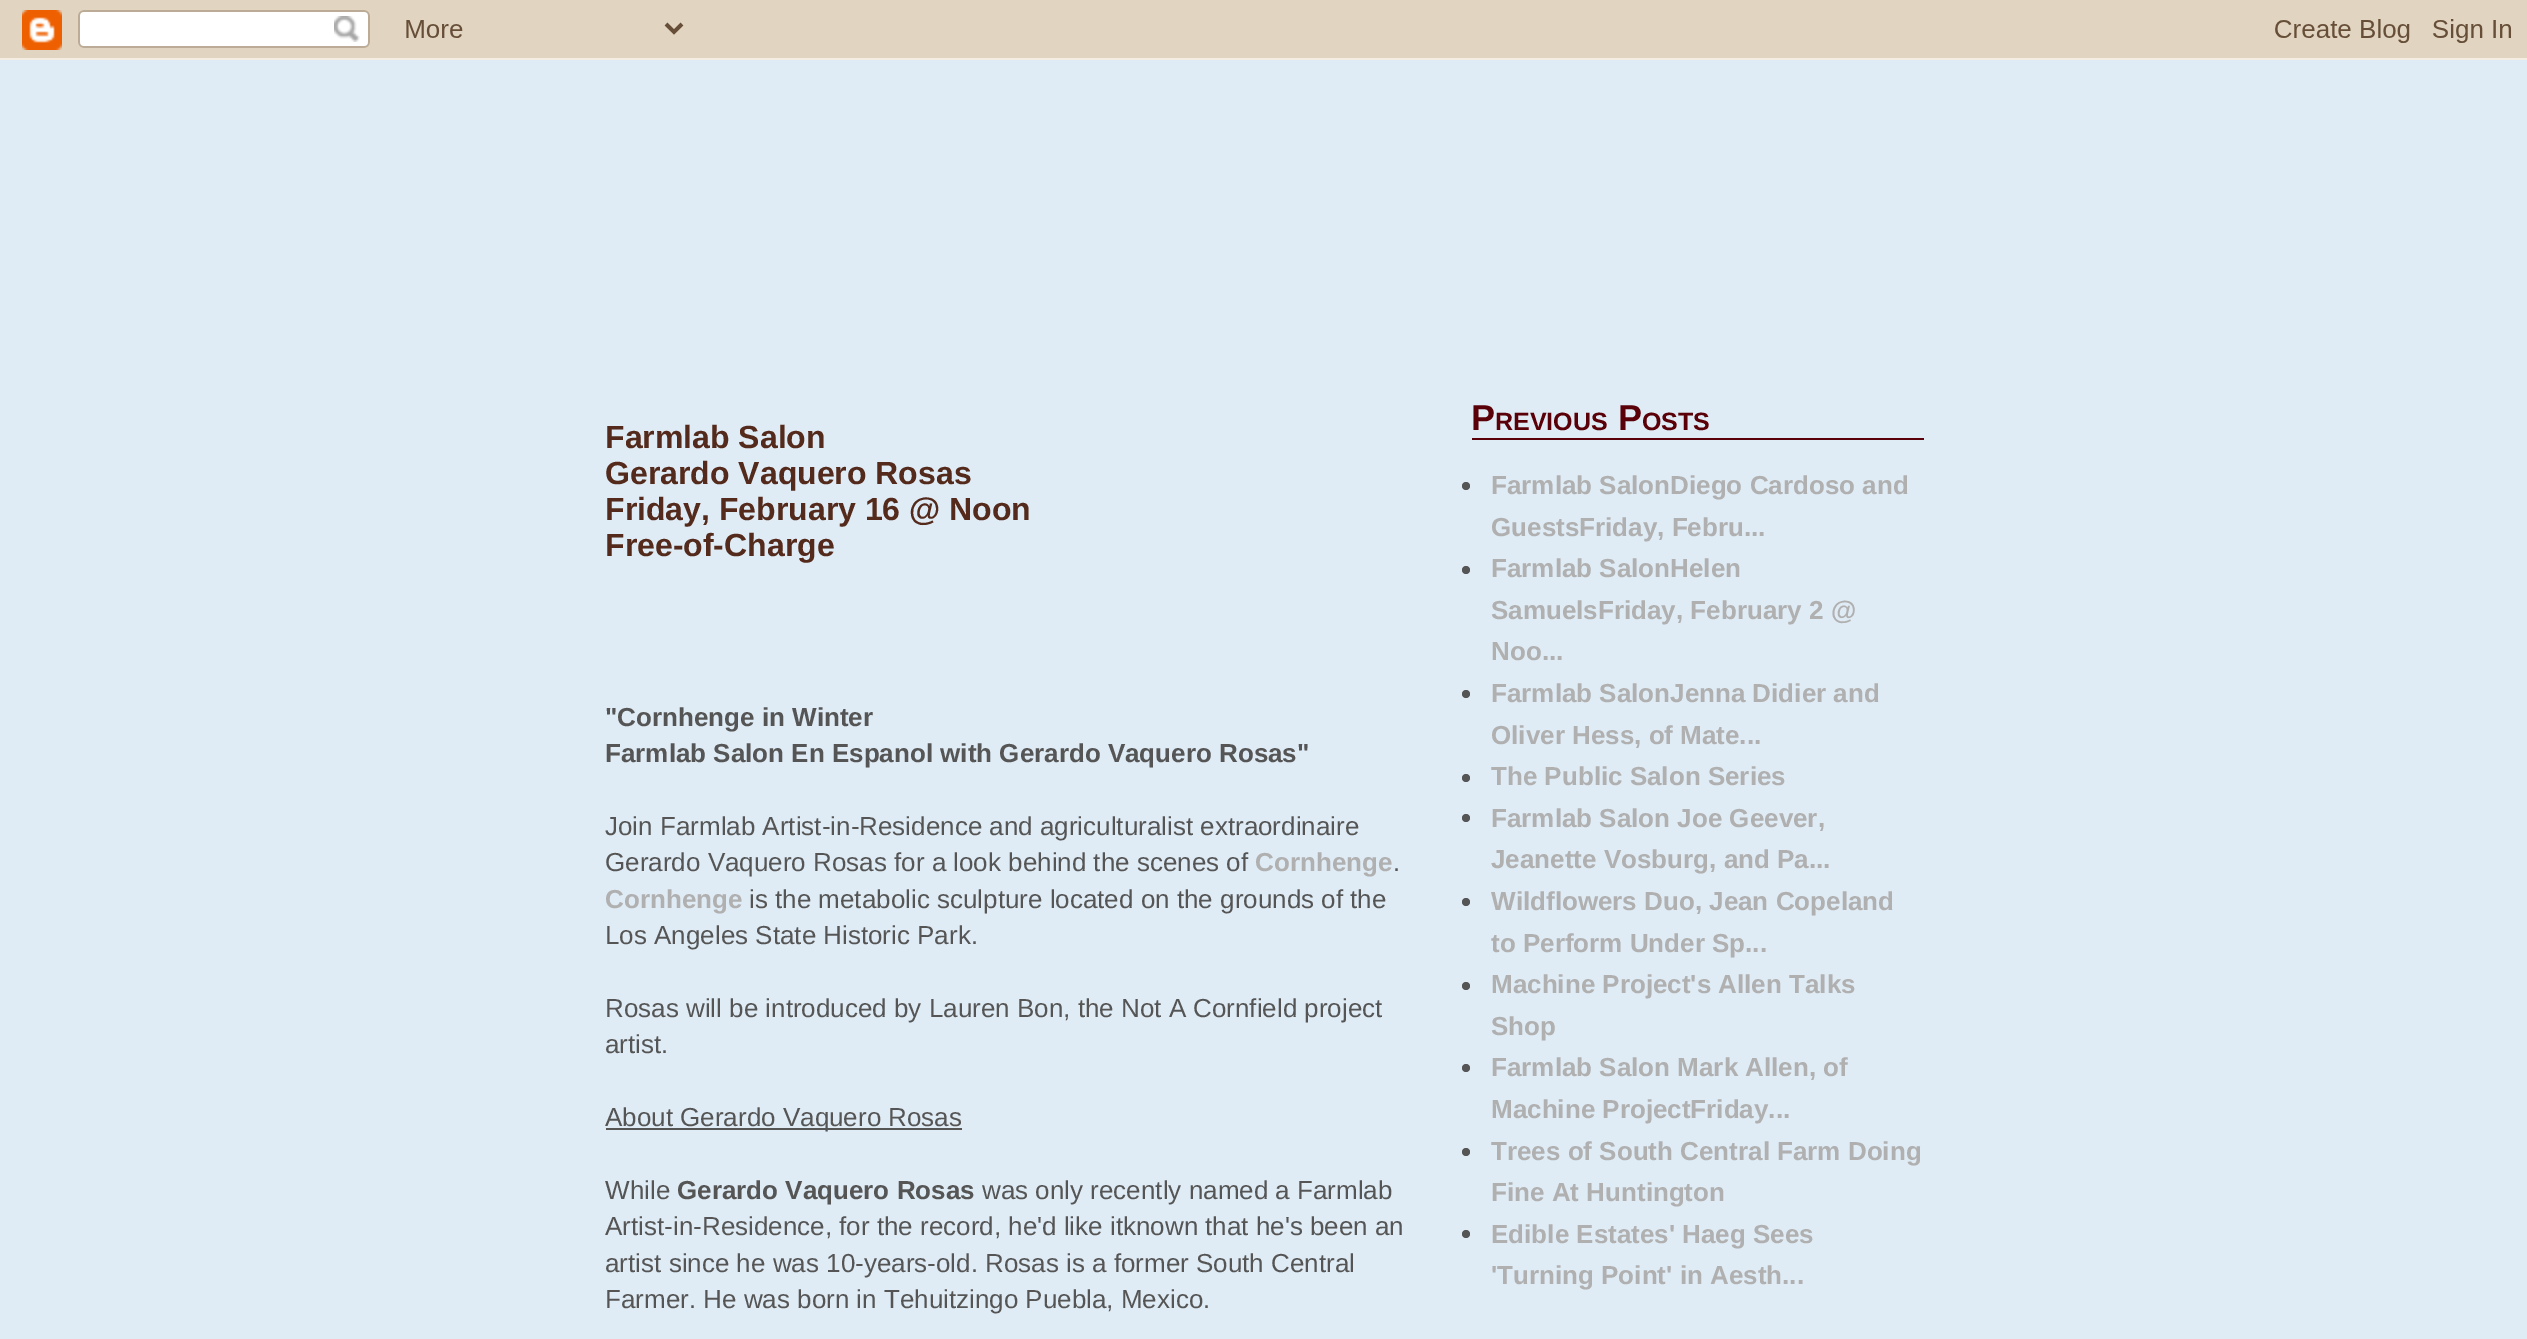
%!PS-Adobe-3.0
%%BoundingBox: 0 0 2527 1339
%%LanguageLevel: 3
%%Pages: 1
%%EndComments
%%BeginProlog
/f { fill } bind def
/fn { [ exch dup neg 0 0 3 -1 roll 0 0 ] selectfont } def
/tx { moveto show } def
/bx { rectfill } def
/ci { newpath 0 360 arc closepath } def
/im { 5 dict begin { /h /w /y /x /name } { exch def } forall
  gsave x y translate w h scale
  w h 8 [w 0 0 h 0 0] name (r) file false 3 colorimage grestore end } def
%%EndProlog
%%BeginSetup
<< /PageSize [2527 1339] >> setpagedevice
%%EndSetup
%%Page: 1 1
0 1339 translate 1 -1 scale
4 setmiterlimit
0.875 0.925 0.961 setrgbcolor
0 0 2527 1339 bx
(image0.raw) 0 0 2527 60 im
/LiberationSans-Bold 32 fn
0.329 0.165 0.11 setrgbcolor
(Farmlab Salon) 605 448 tx
(Gerardo Vaquero Rosas) 605 484 tx
(Friday, February 16 @ Noon) 605 520 tx
(Free-of-Charge) 605 556 tx
/LiberationSans-Bold 26 fn
0.333 setgray
("Cornhenge in Winter) 605 726 tx
(Farmlab Salon En Espanol with Gerardo Vaquero Rosas") 605 762 tx
/LiberationSans-Regular 26 fn
(Join Farmlab Artist-in-Residence and agriculturalist extraordinaire) 605 835 tx
(Gerardo Vaquero Rosas for a look behind the scenes of) 605 871 tx
/LiberationSans-Bold 26 fn
0.69 setgray
(Cornhenge) 1255 871 tx
/LiberationSans-Regular 26 fn
0.333 setgray
(.) 1393 871 tx
/LiberationSans-Bold 26 fn
0.69 setgray
(Cornhenge) 605 908 tx
/LiberationSans-Regular 26 fn
0.333 setgray
(is the metabolic sculpture located on the grounds of the) 749 908 tx
(Los Angeles State Historic Park.) 605 944 tx
(Rosas will be introduced by Lauren Bon, the Not A Cornfield project) 605 1017 tx
(artist.) 605 1053 tx
606 1128 356 2 bx
(About Gerardo Vaquero Rosas) 605 1126 tx
(While) 605 1199 tx
/LiberationSans-Bold 26 fn
(Gerardo Vaquero Rosas) 677 1199 tx
/LiberationSans-Regular 26 fn
(was only recently named a Farmlab) 982 1199 tx
(Artist-in-Residence, for the record, he'd like itknown that he's been an) 605 1235 tx
(artist since he was 10-years-old. Rosas is a former South Central) 605 1272 tx
(Farmer. He was born in Tehuitzingo Puebla, Mexico.) 605 1308 tx
0.353 0 0.035 setrgbcolor
1472 438 452 2 bx
/LiberationSans-Bold 36 fn
(P) 1471 430 tx
/LiberationSans-Bold 25 fn
(REVIOUS) 1495 430 tx
/LiberationSans-Bold 36 fn
(P) 1618 430 tx
/LiberationSans-Bold 25 fn
(OSTS) 1642 430 tx
0.333 setgray
1466 486 4 ci f
/LiberationSans-Bold 26 fn
0.69 setgray
(Farmlab SalonDiego Cardoso and) 1491 494 tx
(GuestsFriday, Febru...) 1491 536 tx
0.333 setgray
1466 570 4 ci f
0.69 setgray
(Farmlab SalonHelen) 1491 577 tx
(SamuelsFriday, February 2 @) 1491 619 tx
(Noo...) 1491 660 tx
0.333 setgray
1466 694 4 ci f
0.69 setgray
(Farmlab SalonJenna Didier and) 1491 702 tx
(Oliver Hess, of Mate...) 1491 744 tx
0.333 setgray
1466 778 4 ci f
0.69 setgray
(The Public Salon Series) 1491 785 tx
0.333 setgray
1466 818 4 ci f
0.69 setgray
(Farmlab Salon Joe Geever,) 1491 827 tx
(Jeanette Vosburg, and Pa...) 1491 868 tx
0.333 setgray
1466 902 4 ci f
0.69 setgray
(Wildflowers Duo, Jean Copeland) 1491 910 tx
(to Perform Under Sp...) 1491 952 tx
0.333 setgray
1466 986 4 ci f
0.69 setgray
(Machine Project's Allen Talks) 1491 993 tx
(Shop) 1491 1035 tx
0.333 setgray
1466 1068 4 ci f
0.69 setgray
(Farmlab Salon Mark Allen, of) 1491 1076 tx
(Machine ProjectFriday...) 1491 1118 tx
0.333 setgray
1466 1152 4 ci f
0.69 setgray
(Trees of South Central Farm Doing) 1491 1160 tx
(Fine At Huntington) 1491 1201 tx
0.333 setgray
1466 1234 4 ci f
0.69 setgray
(Edible Estates' Haeg Sees) 1491 1243 tx
('Turning Point' in Aesth...) 1491 1284 tx
showpage
%%EOF
